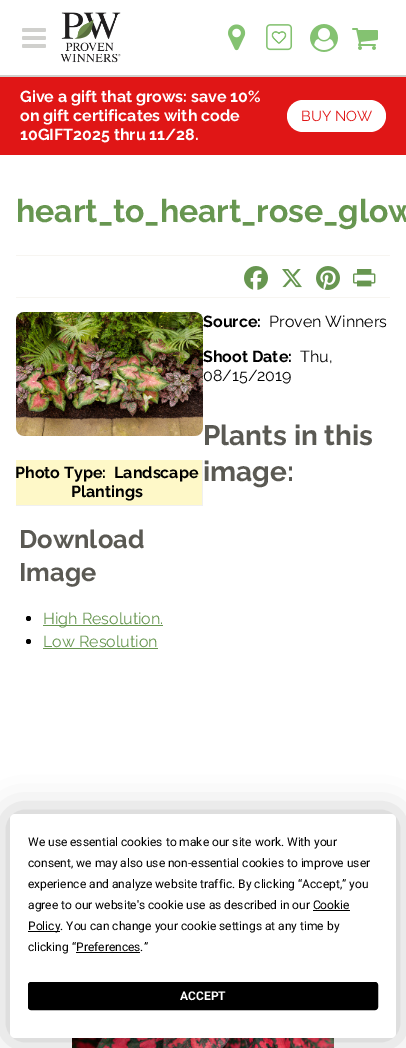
%!PS-Adobe-3.0
%%BoundingBox: 0 0 406 1048
%%LanguageLevel: 3
%%Pages: 1
%%EndComments
%%BeginProlog
/f { fill } bind def
/S { stroke } bind def
/q { gsave } bind def
/Q { grestore } bind def
/fn { [ exch dup neg 0 0 3 -1 roll 0 0 ] selectfont } def
/tx { moveto show } def
/bx { rectfill } def
/al { dup .setfillconstantalpha .setstrokeconstantalpha } def
/ci { newpath 0 360 arc closepath } def
/rr { 5 dict begin { /r /h /w /y /x } { exch def } forall
  x r add y moveto x w add y 2 copy h add r arct x w add y h add x 1 index r arct
  x y h add x y r arct x y 2 copy exch w add exch r arct closepath end } def
/sh { 12 dict begin { /a /b /q /h /w /y /x } { exch def } forall gsave /was 0 def
  9 -2 -9 { dup b mul 4 div /e exch def 1 sub .425 mul 2.718 exch exp 1 add a .99 .min exch div /now exch def
    1 1 now sub 1 was sub div sub al /was now def
    w h .min e 2 mul add 0 gt { x e sub y e sub w e 2 mul add h e 2 mul add
      q e add b .6 mul add w h .min 2 div e add .min 0 .max rr fill } if } for grestore end } def
/im { 5 dict begin { /h /w /y /x /name } { exch def } forall
  gsave x y translate w h scale
  w h 8 [w 0 0 h 0 0] name (r) file false 3 colorimage grestore end } def
%%EndProlog
%%BeginSetup
<< /PageSize [406 1048] /PageUsesTransparency true >> setpagedevice
%%EndSetup
%%Page: 1 1
0 .pushpdf14devicefilter
0 1048 translate 1 -1 scale
4 setmiterlimit
1 setgray
0 0 406 1048 bx
0.816 0.816 0.804 setrgbcolor
0 75 406 2 bx
(image0.raw) 22 28 24 20 im
(image1.raw) 60 12 61 51 im
(image2.raw) 228 24 18 27 im
(image3.raw) 266 24 27 27 im
(image4.raw) 310 24 28 28 im
(image5.raw) 352 28 26 22 im
0.878 0.086 0.086 setrgbcolor
0 77 406 78 bx
/Raleway-Bold 16 fn
1 setgray
(Give a gift that grows: save 10%) 20 102 tx
(on gift certificates with code) 20 121 tx
(10GIFT2025 thru 11/28.) 20 140 tx
287 100 99 32 16 rr f
/Raleway-Regular 14.5 fn
0.878 0.086 0.086 setrgbcolor
(BUY NOW) 301 121 tx
/Raleway-Bold 32 fn
0.404 0.588 0.314 setrgbcolor
(heart_to_heart_rose_glow) 16 222 tx
0.969 0.961 0.945 setrgbcolor
16 255 374 1 bx
16 297 374 1 bx
(image6.raw) 244 266 24 24 im
(image7.raw) 282 269 20 19 im
(image8.raw) 316 266 24 24 im
(image9.raw) 353 269 23 18 im
/Raleway-Bold 16 fn
0 setgray
(Source:) 203 327 tx
/Raleway-Regular 16 fn
(Proven Winners) 269 327 tx
/Raleway-Bold 16 fn
(Shoot Date:) 203 362 tx
/Raleway-Regular 16 fn
(Thu,) 300 362 tx
(08/15/2019) 203 381 tx
/Raleway-Bold 28 fn
0.353 0.349 0.325 setrgbcolor
(Plants in this) 203 445 tx
(image:) 203 481 tx
(image10.raw) 16 312 187 124 im
0.941 setgray
202 460 1 46 bx
16 505 187 1 bx
0.996 0.973 0.784 setrgbcolor
16 460 186 45 bx
/Raleway-Bold 16 fn
0 setgray
(Photo Type:) 15 478 tx
(Landscape) 114 478 tx
(Plantings) 71 497 tx
/Raleway-Bold 25.5 fn
0.353 0.349 0.325 setrgbcolor
(Download) 19 548 tx
(Image) 19 581 tx
0 setgray
28.5 618.5 2.5 ci f
0.404 0.588 0.314 setrgbcolor
43 625 120 1 bx
/Raleway-Regular 16 fn
(High Resolution.) 43 624 tx
0 setgray
28.5 641.5 2.5 ci f
0.404 0.588 0.314 setrgbcolor
(Low Resolution) 43 647 tx
43 648 115 1 bx
(image11.raw) 72 1038 262 10 im
0 setgray
10 814 386 224 5 17.5 0.25 sh
1 setgray
10 814 386 224 5 rr f
/Roboto-Regular 12 fn
0 setgray
(We use essential cookies to make our site work. With your) 28 846 tx
(consent, we may also use non-essential cookies to improve user) 28 867 tx
(experience and analyze website traffic. By clicking “Accept,” you) 28 888 tx
(agree to our website's cookie use as described in our Cookie) 28 909 tx
28 931 32 1 bx
(Policy. You can change your cookie settings at any time by) 28 930 tx
313 910 37 1 bx
(clicking “Preferences.”) 28 951 tx
76 952 64 1 bx
28.5 982.5 349 27 2.5 rr q f Q
S
/Roboto-Bold 12 fn
1 setgray
(ACCEPT) 180 1000 tx
.poppdf14devicefilter showpage
%%EOF
